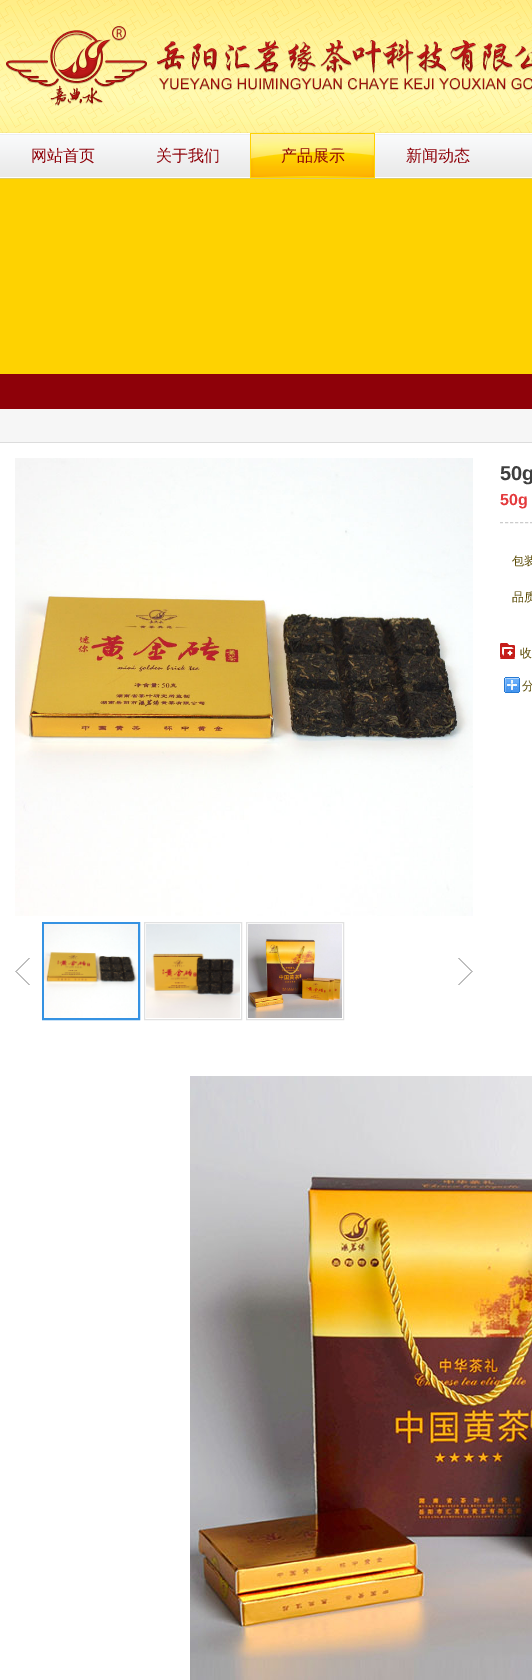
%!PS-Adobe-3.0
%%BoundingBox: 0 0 532 1680
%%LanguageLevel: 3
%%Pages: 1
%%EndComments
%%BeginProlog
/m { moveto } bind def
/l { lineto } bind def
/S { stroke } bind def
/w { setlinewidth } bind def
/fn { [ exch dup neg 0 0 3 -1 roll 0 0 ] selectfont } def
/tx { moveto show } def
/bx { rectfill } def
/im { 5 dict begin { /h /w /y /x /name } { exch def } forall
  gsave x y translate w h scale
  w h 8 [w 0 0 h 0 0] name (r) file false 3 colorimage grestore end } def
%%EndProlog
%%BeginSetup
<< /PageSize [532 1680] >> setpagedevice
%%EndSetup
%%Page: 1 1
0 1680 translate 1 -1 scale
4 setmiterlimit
0.996 0.824 0.004 setrgbcolor
0 0 532 1680 bx
(image0.raw) 0 0 532 133 im
(image1.raw) 6 7 526 126 im
(image2.raw) 0 133 532 46 im
(image3.raw) 250 133 125 45 im
/WenQuanYiZenHei-Medium 16 fn
0.557 0.004 0.035 setrgbcolor
(网站首页) 31 161 tx
(关于我们) 156 161 tx
(产品展示) 281 161 tx
(新闻动态) 406 161 tx
0 374 532 35 bx
0.965 setgray
0 409 532 33 bx
0.863 setgray
0 442 532 1 bx
1 setgray
0 443 532 1237 bx
(image4.raw) 15 458 458 458 im
(image5.raw) 15 958 15 27 im
0.208 0.573 0.886 setrgbcolor
2 w
43 923 96 96 rectstroke
(image6.raw) 44 924 94 94 im
0.882 setgray
1 w
144.5 922.5 97 97 rectstroke
(image7.raw) 146 924 94 94 im
246.5 922.5 97 97 rectstroke
(image8.raw) 248 924 94 94 im
(image9.raw) 458 958 15 27 im
0.8 setgray
[3 2.02] 0 setdash
500 522.5 m 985 522.5 l S
/LiberationSans-Bold 20 fn
0.243 setgray
(50g) 500 480 tx
/LiberationSans-Bold 16 fn
0.894 0.224 0.235 setrgbcolor
(50g) 500 505 tx
/WenQuanYiZenHei-Medium 12 fn
0.341 0.278 0 setrgbcolor
(包装) 512 565 tx
(品质) 512 601 tx
(image10.raw) 500 643 15 16 im
(收) 520 657 tx
(image11.raw) 504 677 16 16 im
(分) 522 690 tx
(image12.raw) 190 1076 342 604 im
showpage
%%EOF
